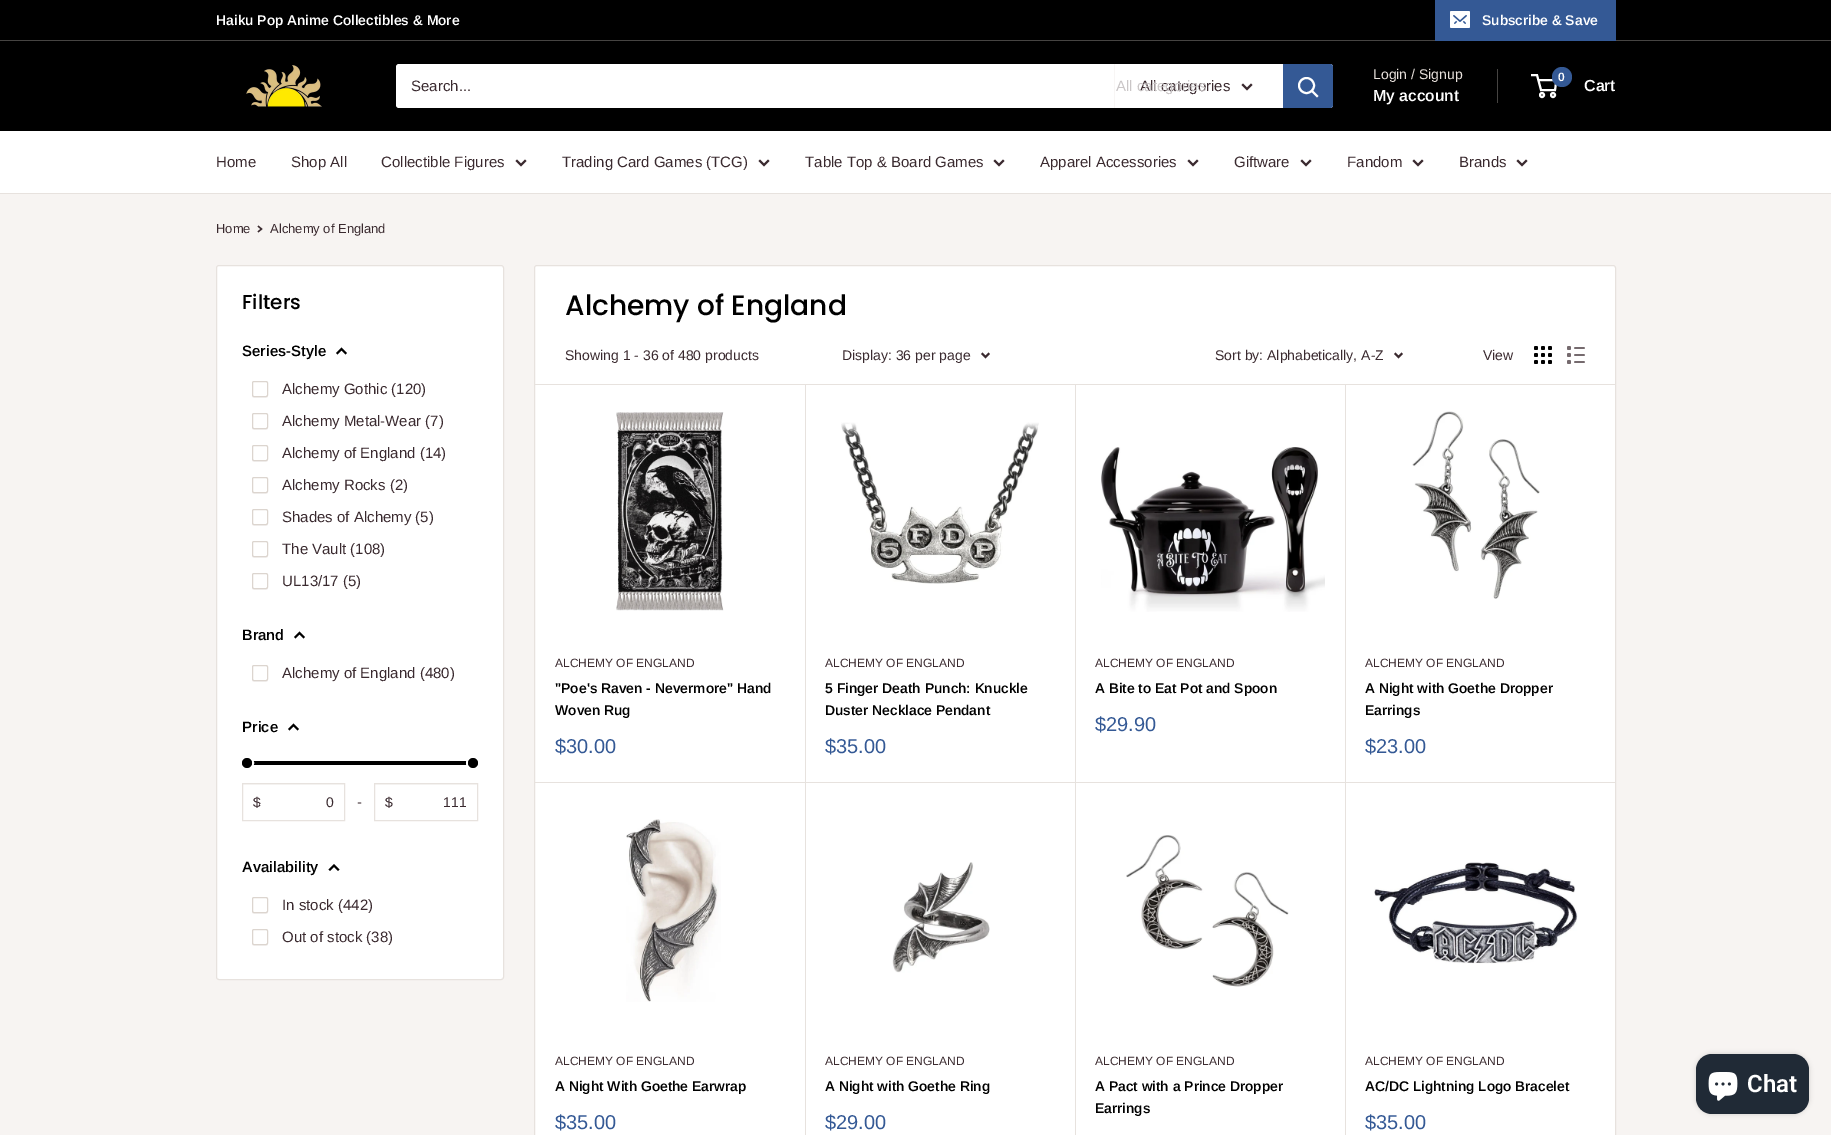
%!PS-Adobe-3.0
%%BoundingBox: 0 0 1831 1135
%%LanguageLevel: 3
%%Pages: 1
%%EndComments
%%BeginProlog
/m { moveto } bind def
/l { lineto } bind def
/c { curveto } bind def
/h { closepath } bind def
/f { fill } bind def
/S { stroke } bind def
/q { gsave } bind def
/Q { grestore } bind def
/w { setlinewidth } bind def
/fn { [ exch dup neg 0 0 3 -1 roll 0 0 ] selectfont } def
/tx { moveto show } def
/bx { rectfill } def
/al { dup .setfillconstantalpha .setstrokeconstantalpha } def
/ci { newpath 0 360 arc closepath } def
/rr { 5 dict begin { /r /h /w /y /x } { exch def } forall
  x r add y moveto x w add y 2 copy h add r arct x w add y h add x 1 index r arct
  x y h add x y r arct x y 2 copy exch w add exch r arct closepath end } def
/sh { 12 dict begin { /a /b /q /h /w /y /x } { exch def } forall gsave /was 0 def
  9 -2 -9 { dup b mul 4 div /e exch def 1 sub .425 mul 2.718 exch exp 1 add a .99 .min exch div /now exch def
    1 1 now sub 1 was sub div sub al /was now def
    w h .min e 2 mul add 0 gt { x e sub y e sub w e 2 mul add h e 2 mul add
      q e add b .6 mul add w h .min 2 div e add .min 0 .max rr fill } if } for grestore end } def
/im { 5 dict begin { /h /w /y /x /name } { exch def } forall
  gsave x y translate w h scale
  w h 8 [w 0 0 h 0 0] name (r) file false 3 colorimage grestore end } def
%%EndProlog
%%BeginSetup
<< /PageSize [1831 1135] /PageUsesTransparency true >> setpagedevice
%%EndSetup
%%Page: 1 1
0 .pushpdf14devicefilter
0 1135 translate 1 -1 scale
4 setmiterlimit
0.969 0.957 0.949 setrgbcolor
0 0 1831 1135 bx
0 setgray
0 0 1831 40 bx
0.275 0.267 0.259 setrgbcolor
0 40 1831 1 bx
/Arimo-SemiBold 14 fn
1 setgray
(Haiku Pop Anime Collectibles & More) 216 25 tx
0.204 0.349 0.584 setrgbcolor
1435 0 181 41 bx
(image0.raw) 1450 11 20 17 im
1 setgray
(Subscribe & Save) 1482 25 tx
0 setgray
0 41 1831 90 bx
(image1.raw) 246 65 76 42 im
1 setgray
396 64 937 44 3 rr f
/Arimo-Regular 15 fn
0.227 0.165 0.184 setrgbcolor
(Search...) 411 91 tx
0.973 0.965 0.961 setrgbcolor
1114 64 1 44 bx
0.227 0.165 0.184 setrgbcolor
(All categories) 1140 91 tx
0.792 0.776 0.78 setrgbcolor
(All categories) 1116 91 tx
0.227 0.165 0.184 setrgbcolor
2 w
2 setlinecap
1251 85 m 1247 89 l 1243 85 l S
0.204 0.349 0.584 setrgbcolor
1283 64 m 1330 64 l 1331.5 64 1333 65.5 1333 67 c 1333 105 l 1333 106.5 1331.5 108 1330 108 c 1283 108 l h f
1 setgray
1317 96 m 1312 91 l S
0 setlinecap
1306.5 85.5 7.5 ci S
/Arimo-Regular 14 fn
0.914 0.886 0.867 setrgbcolor
(Login / Signup) 1373 79 tx
0.275 0.267 0.259 setrgbcolor
1497 69 1 34 bx
/Arimo-SemiBold 16 fn
1 setgray
(My account) 1373 101 tx
1542 95 2 ci S
1553 95 2 ci S
1538.5 80 m 1556.5 80 l 1555 90 l 1541 90 l 1537 75 l 1531 75 l S
0.204 0.349 0.584 setrgbcolor
1562 77 10 ci f
/Arimo-SemiBold 12 fn
1 setgray
(0) 1558 81 tx
/Arimo-SemiBold 16 fn
(Cart) 1584 91 tx
0 131 1831 62 bx
0.906 0.886 0.871 setrgbcolor
0 193 1831 1 bx
/Arimo-Regular 15 fn
0.227 0.165 0.184 setrgbcolor
(Home) 216 167 tx
(Shop All) 291 167 tx
(Collectible Figures) 381 167 tx
2 setlinecap
525 161 m 521 165 l 517 161 l S
(Trading Card Games \(TCG\)) 562 167 tx
768 161 m 764 165 l 760 161 l S
(Table Top & Board Games) 805 167 tx
1003 161 m 999 165 l 995 161 l S
(Apparel Accessories) 1040 167 tx
1197 161 m 1193 165 l 1189 161 l S
(Giftware) 1234 167 tx
1310 161 m 1306 165 l 1302 161 l S
(Fandom) 1347 167 tx
1422 161 m 1418 165 l 1414 161 l S
(Brands) 1459 167 tx
1526 161 m 1522 165 l 1518 161 l S
/Arimo-Regular 13 fn
(Home) 216 233 tx
1.3 w
258.5 226.5 m 261.5 229 l 258.5 231.5 l S
(Alchemy of England) 270 233 tx
1 setgray
216.5 265.5 287 714 2.5 rr q f Q
0.906 0.886 0.871 setrgbcolor
1 w
0 setlinecap
S
/Poppins-Medium 20 fn
0 setgray
(Filters) 242 309 tx
/Arimo-SemiBold 15 fn
(Series-Style) 242 356 tx
2 w
2 setlinecap
337.5 353 m 341.5 349 l 345.5 353 l S
0.961 0.953 0.949 setrgbcolor
252 395 m 252 398 253 398 256 398 c 264 398 l 267 398 268 398 268 395 c 268 396 267 397 266 397 c 254 397 l 253 397 252 396 252 395 c h f
0.863 0.835 0.812 setrgbcolor
1 w
0 setlinecap
252.5 381.5 15 15 1.5 rr S
/Arimo-Regular 15 fn
0.227 0.165 0.184 setrgbcolor
(Alchemy Gothic \(120\)) 282 394 tx
0.961 0.953 0.949 setrgbcolor
252 427 m 252 430 253 430 256 430 c 264 430 l 267 430 268 430 268 427 c 268 428 267 429 266 429 c 254 429 l 253 429 252 428 252 427 c h f
0.863 0.835 0.812 setrgbcolor
252.5 413.5 15 15 1.5 rr S
0.227 0.165 0.184 setrgbcolor
(Alchemy Metal-Wear \(7\)) 282 426 tx
0.961 0.953 0.949 setrgbcolor
252 459 m 252 462 253 462 256 462 c 264 462 l 267 462 268 462 268 459 c 268 460 267 461 266 461 c 254 461 l 253 461 252 460 252 459 c h f
0.863 0.835 0.812 setrgbcolor
252.5 445.5 15 15 1.5 rr S
0.227 0.165 0.184 setrgbcolor
(Alchemy of England \(14\)) 282 458 tx
0.961 0.953 0.949 setrgbcolor
252 491 m 252 494 253 494 256 494 c 264 494 l 267 494 268 494 268 491 c 268 492 267 493 266 493 c 254 493 l 253 493 252 492 252 491 c h f
0.863 0.835 0.812 setrgbcolor
252.5 477.5 15 15 1.5 rr S
0.227 0.165 0.184 setrgbcolor
(Alchemy Rocks \(2\)) 282 490 tx
0.961 0.953 0.949 setrgbcolor
252 523 m 252 526 253 526 256 526 c 264 526 l 267 526 268 526 268 523 c 268 524 267 525 266 525 c 254 525 l 253 525 252 524 252 523 c h f
0.863 0.835 0.812 setrgbcolor
252.5 509.5 15 15 1.5 rr S
0.227 0.165 0.184 setrgbcolor
(Shades of Alchemy \(5\)) 282 522 tx
0.961 0.953 0.949 setrgbcolor
252 555 m 252 558 253 558 256 558 c 264 558 l 267 558 268 558 268 555 c 268 556 267 557 266 557 c 254 557 l 253 557 252 556 252 555 c h f
0.863 0.835 0.812 setrgbcolor
252.5 541.5 15 15 1.5 rr S
0.227 0.165 0.184 setrgbcolor
(The Vault \(108\)) 282 554 tx
0.961 0.953 0.949 setrgbcolor
252 587 m 252 590 253 590 256 590 c 264 590 l 267 590 268 590 268 587 c 268 588 267 589 266 589 c 254 589 l 253 589 252 588 252 587 c h f
0.863 0.835 0.812 setrgbcolor
252.5 573.5 15 15 1.5 rr S
0.227 0.165 0.184 setrgbcolor
(UL13/17 \(5\)) 282 586 tx
/Arimo-SemiBold 15 fn
0 setgray
(Brand) 242 640 tx
2 w
2 setlinecap
295.5 637 m 299.5 633 l 303.5 637 l S
0.961 0.953 0.949 setrgbcolor
252 679 m 252 682 253 682 256 682 c 264 682 l 267 682 268 682 268 679 c 268 680 267 681 266 681 c 254 681 l 253 681 252 680 252 679 c h f
0.863 0.835 0.812 setrgbcolor
1 w
0 setlinecap
252.5 665.5 15 15 1.5 rr S
/Arimo-Regular 15 fn
0.227 0.165 0.184 setrgbcolor
(Alchemy of England \(480\)) 282 678 tx
/Arimo-SemiBold 15 fn
0 setgray
(Price) 242 732 tx
2 w
2 setlinecap
289.5 729 m 293.5 725 l 297.5 729 l S
242 761 236 4 2 rr f
1 setgray
0 setlinecap
247 763 6 ci S
0 setgray
247 763 5 ci f
1 setgray
473 763 6 ci S
0 setgray
473 763 5 ci f
0.976 0.973 0.969 setrgbcolor
243 784 101 1 bx
0.906 0.886 0.871 setrgbcolor
1 w
242.5 783.5 102 37 rectstroke
/Arimo-Regular 14 fn
0.227 0.165 0.184 setrgbcolor
($) 253 807 tx
1 setgray
260 804 1 1 bx
0.227 0.165 0.184 setrgbcolor
(0) 326 807 tx
/Arimo-Regular 15 fn
(-) 357 807 tx
0.976 0.973 0.969 setrgbcolor
375 784 102 1 bx
0.906 0.886 0.871 setrgbcolor
374.5 783.5 103 37 rectstroke
/Arimo-Regular 14 fn
0.227 0.165 0.184 setrgbcolor
($) 385 807 tx
(111) 443 807 tx
/Arimo-SemiBold 15 fn
0 setgray
(Availability) 242 872 tx
2 w
2 setlinecap
330 869.5 m 334 865.5 l 338 869.5 l S
0.961 0.953 0.949 setrgbcolor
252 911 m 252 914 253 914 256 914 c 264 914 l 267 914 268 914 268 911 c 268 912 267 913 266 913 c 254 913 l 253 913 252 912 252 911 c h f
0.863 0.835 0.812 setrgbcolor
1 w
0 setlinecap
252.5 897.5 15 15 1.5 rr S
/Arimo-Regular 15 fn
0.227 0.165 0.184 setrgbcolor
(In stock \(442\)) 282 910 tx
0.961 0.953 0.949 setrgbcolor
252 943 m 252 946 253 946 256 946 c 264 946 l 267 946 268 946 268 943 c 268 944 267 945 266 945 c 254 945 l 253 945 252 944 252 943 c h f
0.863 0.835 0.812 setrgbcolor
252.5 929.5 15 15 1.5 rr S
0.227 0.165 0.184 setrgbcolor
(Out of stock \(38\)) 282 942 tx
1 setgray
534.5 265.5 1081 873 2.5 rr q f Q
0.906 0.886 0.871 setrgbcolor
S
/Poppins-Medium 28 fn
0 setgray
(Alchemy of England) 565 315 tx
0.906 0.886 0.871 setrgbcolor
535 782 1080 1 bx
805 384 1 751 bx
1075 384 1 751 bx
1345 384 1 751 bx
535 384 1080 1 bx
/Arimo-Regular 14 fn
0.227 0.165 0.184 setrgbcolor
(Showing 1 - 36 of 480 products) 565 360 tx
(Display: 36 per page) 842 360 tx
1.9 w
2 setlinecap
988.5 354 m 985.5 357 l 982.5 354 l S
(Sort by: Alphabetically, A-Z) 1215 360 tx
1401.5 354 m 1398.5 357 l 1395.5 354 l S
(View) 1483 360 tx
(image2.raw) 1534 346 18 18 im
(image3.raw) 1567 346 18 18 im
(image4.raw) 616 412 108 199 im
/Arimo-Regular 12 fn
(ALCHEMY OF ENGLAND) 555 667 tx
/Arimo-SemiBold 14 fn
0 setgray
("Poe's Raven - Nevermore" Hand) 555 693 tx
(Woven Rug) 555 715 tx
/Arimo-Regular 20 fn
0.204 0.349 0.584 setrgbcolor
($30.00) 555 753 tx
(image5.raw) 841 422 198 162 im
/Arimo-Regular 12 fn
0.227 0.165 0.184 setrgbcolor
(ALCHEMY OF ENGLAND) 825 667 tx
/Arimo-SemiBold 14 fn
0 setgray
(5 Finger Death Punch: Knuckle) 825 693 tx
(Duster Necklace Pendant) 825 715 tx
/Arimo-Regular 20 fn
0.204 0.349 0.584 setrgbcolor
($35.00) 825 753 tx
(image6.raw) 1101 447 224 165 im
/Arimo-Regular 12 fn
0.227 0.165 0.184 setrgbcolor
(ALCHEMY OF ENGLAND) 1095 667 tx
/Arimo-SemiBold 14 fn
0 setgray
(A Bite to Eat Pot and Spoon) 1095 693 tx
/Arimo-Regular 20 fn
0.204 0.349 0.584 setrgbcolor
($29.90) 1095 731 tx
(image7.raw) 1412 411 128 188 im
/Arimo-Regular 12 fn
0.227 0.165 0.184 setrgbcolor
(ALCHEMY OF ENGLAND) 1365 667 tx
/Arimo-SemiBold 14 fn
0 setgray
(A Night with Goethe Dropper) 1365 693 tx
(Earrings) 1365 715 tx
/Arimo-Regular 20 fn
0.204 0.349 0.584 setrgbcolor
($23.00) 1365 753 tx
(image8.raw) 626 819 95 183 im
/Arimo-Regular 12 fn
0.227 0.165 0.184 setrgbcolor
(ALCHEMY OF ENGLAND) 555 1065 tx
/Arimo-SemiBold 14 fn
0 setgray
(A Night With Goethe Earwrap) 555 1091 tx
/Arimo-Regular 20 fn
0.204 0.349 0.584 setrgbcolor
($35.00) 555 1129 tx
(image9.raw) 892 862 98 111 im
/Arimo-Regular 12 fn
0.227 0.165 0.184 setrgbcolor
(ALCHEMY OF ENGLAND) 825 1065 tx
/Arimo-SemiBold 14 fn
0 setgray
(A Night with Goethe Ring) 825 1091 tx
/Arimo-Regular 20 fn
0.204 0.349 0.584 setrgbcolor
($29.00) 825 1129 tx
(image10.raw) 1126 835 163 152 im
/Arimo-Regular 12 fn
0.227 0.165 0.184 setrgbcolor
(ALCHEMY OF ENGLAND) 1095 1065 tx
/Arimo-SemiBold 14 fn
0 setgray
(A Pact with a Prince Dropper) 1095 1091 tx
(Earrings) 1095 1113 tx
(image11.raw) 1374 862 204 102 im
/Arimo-Regular 12 fn
0.227 0.165 0.184 setrgbcolor
(ALCHEMY OF ENGLAND) 1365 1065 tx
/Arimo-SemiBold 14 fn
0 setgray
(AC/DC Lightning Logo Bracelet) 1365 1091 tx
/Arimo-Regular 20 fn
0.204 0.349 0.584 setrgbcolor
($35.00) 1365 1129 tx
0 setgray
1696 1054 113 60 16 2.5 0.15 sh
0.125 0.165 0.212 setrgbcolor
1696 1054 113 60 16 rr f
(image12.raw) 1708 1072 30 29 im
/Roboto-SemiBold 24 fn
1 setgray
(Chat) 1747 1092 tx
.poppdf14devicefilter showpage
%%EOF
